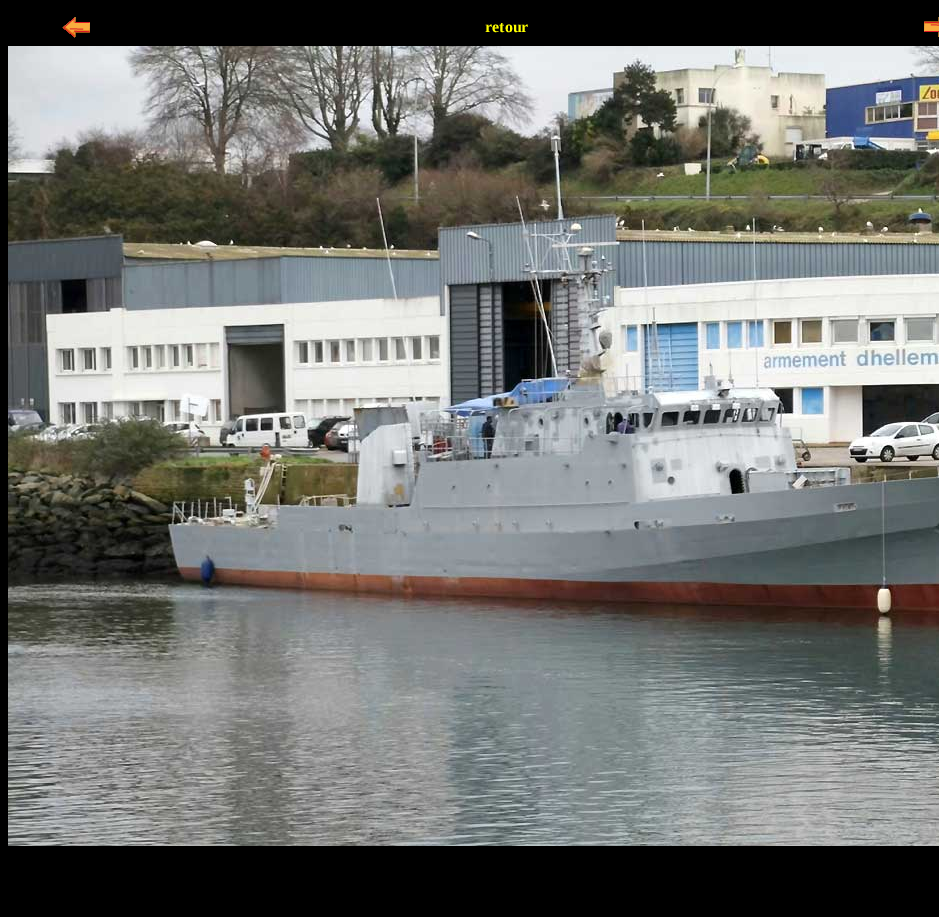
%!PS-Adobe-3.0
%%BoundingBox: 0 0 939 917
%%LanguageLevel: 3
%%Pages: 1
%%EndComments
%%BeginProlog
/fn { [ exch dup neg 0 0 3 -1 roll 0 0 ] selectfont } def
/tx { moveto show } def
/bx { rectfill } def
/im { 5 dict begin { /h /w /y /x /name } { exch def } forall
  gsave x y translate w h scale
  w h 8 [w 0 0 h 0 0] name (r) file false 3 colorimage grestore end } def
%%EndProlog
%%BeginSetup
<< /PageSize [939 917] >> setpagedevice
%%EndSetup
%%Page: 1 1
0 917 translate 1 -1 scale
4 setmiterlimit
0 setgray
0 0 939 917 bx
(image0.raw) 62 17 28 21 im
/LiberationSerif-Bold 16 fn
1 1 0 setrgbcolor
(retour) 485 32 tx
(image1.raw) 924 17 15 20 im
(image2.raw) 8 46 931 800 im
showpage
%%EOF
